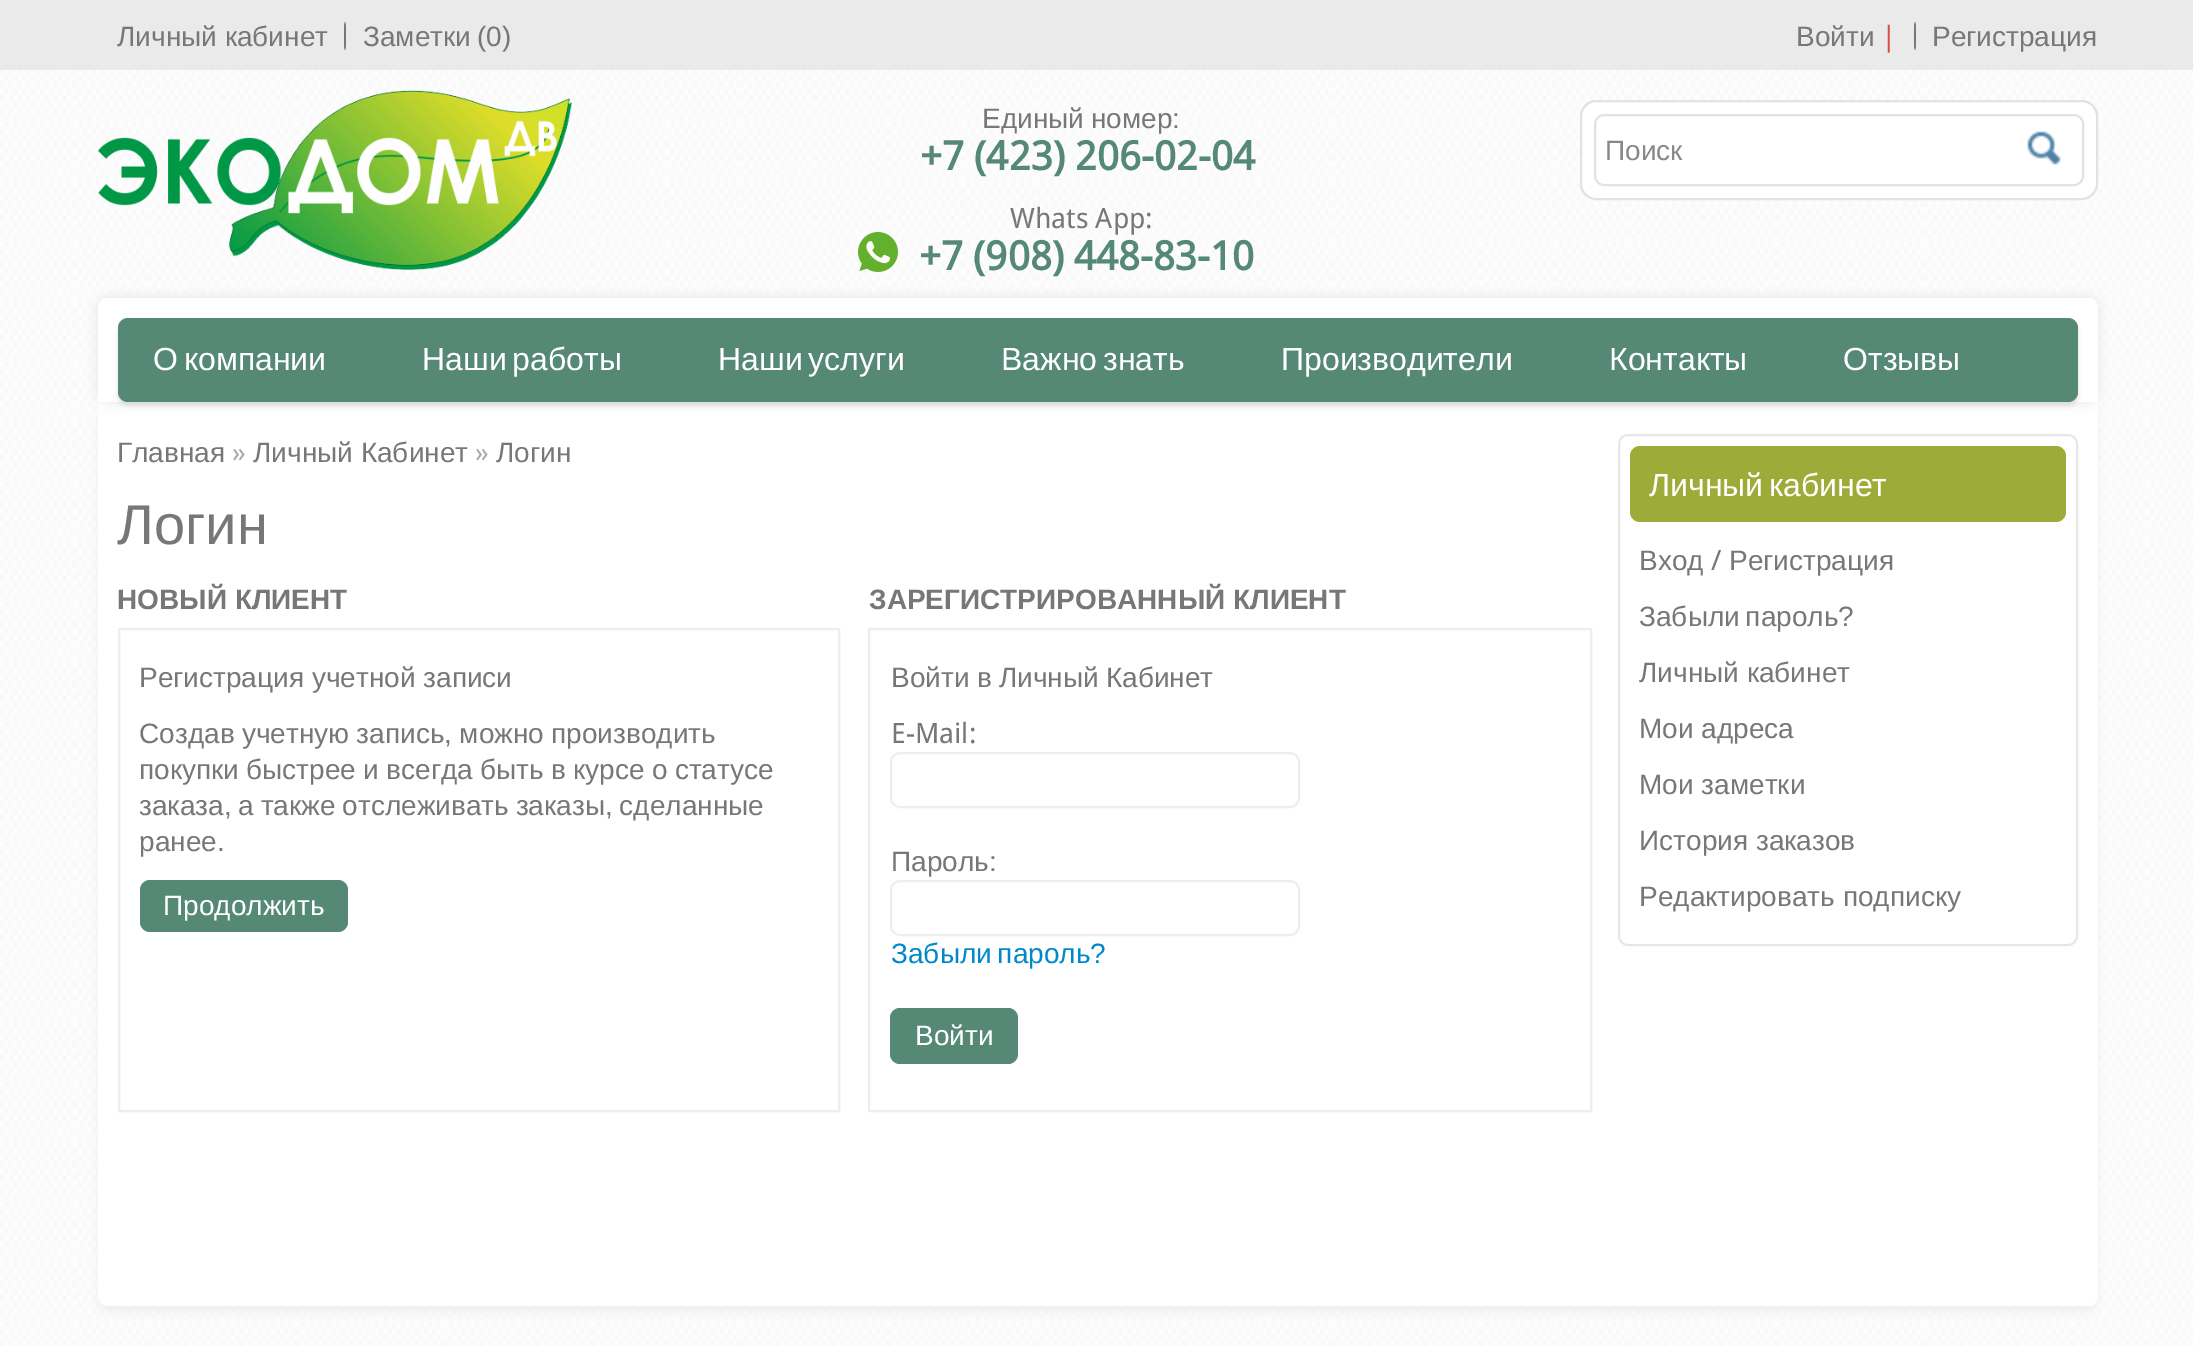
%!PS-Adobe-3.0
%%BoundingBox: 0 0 2193 1346
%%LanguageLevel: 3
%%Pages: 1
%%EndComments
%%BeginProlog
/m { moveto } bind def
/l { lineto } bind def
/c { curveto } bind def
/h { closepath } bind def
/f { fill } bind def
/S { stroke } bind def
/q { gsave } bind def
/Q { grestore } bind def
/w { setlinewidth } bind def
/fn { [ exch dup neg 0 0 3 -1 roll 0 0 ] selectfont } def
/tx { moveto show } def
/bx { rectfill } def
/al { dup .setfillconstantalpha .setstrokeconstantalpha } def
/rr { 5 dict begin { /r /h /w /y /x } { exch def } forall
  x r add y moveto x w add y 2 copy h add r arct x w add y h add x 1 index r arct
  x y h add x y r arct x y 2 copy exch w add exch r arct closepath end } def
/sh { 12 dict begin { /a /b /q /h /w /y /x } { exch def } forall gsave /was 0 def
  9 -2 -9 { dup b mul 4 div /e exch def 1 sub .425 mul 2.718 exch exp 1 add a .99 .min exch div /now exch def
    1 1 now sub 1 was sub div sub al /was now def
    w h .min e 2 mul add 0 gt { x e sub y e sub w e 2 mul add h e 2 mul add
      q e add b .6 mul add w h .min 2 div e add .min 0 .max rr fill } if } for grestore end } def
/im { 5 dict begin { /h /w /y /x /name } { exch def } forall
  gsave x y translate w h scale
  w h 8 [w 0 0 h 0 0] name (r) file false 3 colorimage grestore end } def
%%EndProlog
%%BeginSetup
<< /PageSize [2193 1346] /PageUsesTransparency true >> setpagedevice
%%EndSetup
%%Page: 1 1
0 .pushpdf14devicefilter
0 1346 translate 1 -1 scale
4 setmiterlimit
1 setgray
0 0 2193 1346 bx
(image0.raw) 0 70 2193 1276 im
0.918 setgray
0 0 2193 70 bx
/LiberationSans-Regular 28 fn
0.467 setgray
(Личный кабинет) 117 46 tx
(image1.raw) 344 22 2 28 im
363 46 m -2 0 32 (Заметки \(0\)) widthshow
(Войти) 1796 46 tx
/DroidSans-Regular 28 fn
0.851 0.298 0.259 setrgbcolor
(|) 1881 46 tx
(image1.raw) 1914 22 2 28 im
/LiberationSans-Regular 28 fn
0.467 setgray
(Регистрация) 1932 46 tx
(image2.raw) 98 90 474 180 im
982 128 m -1 0 32 (Единый номер:) widthshow
/DroidSans-Bold 40 fn
0.333 0.537 0.459 setrgbcolor
(+7 \(423\) 206-02-04) 920 170 tx
/DroidSans-Regular 28 fn
0.467 setgray
(Whats App:) 1010 228 tx
(image3.raw) 858 232 40 40 im
/DroidSans-Bold 40 fn
0.333 0.537 0.459 setrgbcolor
(+7 \(908\) 448-83-10) 919 270 tx
1 setgray
1581 101 516 98 15 rr q f Q
0.886 setgray
2 w
S
1595 115 488 70 9 rr S
/LiberationSans-Regular 28 fn
0.533 setgray
(Поиск) 1605 160 tx
(image4.raw) 2027 131 34 34 im
0.898 setgray
102 412 1992 896 6 6 1 sh
1 setgray
98 402 m 2098 402 l 2098 1296 l 2098 1301.5 2093.5 1306 2088 1306 c 108 1306 l 102.5 1306 98 1301.5 98 1296 c h f
0.898 setgray
98 298 2000 104 10 6 1 sh
1 setgray
108 298 m 2088 298 l 2093.5 298 2098 302.5 2098 308 c 2098 402 l 98 402 l 98 308 l 98 302.5 102.5 298 108 298 c h f
0.867 setgray
118 322 1960 84 10 2 1 sh
0.333 0.537 0.463 setrgbcolor
118 318 1960 84 10 rr f
/LiberationSans-Regular 32 fn
1 setgray
153 370 m -3 0 32 (О компании) widthshow
422 370 m -3 0 32 (Наши работы) widthshow
718 370 m -3 0 32 (Наши услуги) widthshow
1001 370 m -3 0 32 (Важно знать) widthshow
(Производители) 1281 370 tx
(Контакты) 1609 370 tx
(Отзывы) 1843 370 tx
/LiberationSans-Regular 28 fn
0.467 setgray
(Главная) 117 462 tx
/DroidSans-Regular 28 fn
0.667 setgray
(») 232 462 tx
/LiberationSans-Regular 28 fn
0.467 setgray
(Личный Кабинет) 253 462 tx
/DroidSans-Regular 28 fn
0.667 setgray
(») 475 462 tx
/LiberationSans-Regular 28 fn
0.467 setgray
(Логин) 496 462 tx
/LiberationSans-Regular 56 fn
(Логин) 117 544 tx
/LiberationSans-Bold 28 fn
(НОВЫЙ КЛИЕНТ) 117 609 tx
0.933 setgray
119 629 720 482 rectstroke
/LiberationSans-Regular 28 fn
0.467 setgray
(Регистрация учетной записи) 139 687 tx
139 743 m -0.5 0 32 (Создав учетную запись, можно производить) widthshow
139 779 m -0.5 0 32 (покупки быстрее и всегда быть в курсе о статусе) widthshow
139 815 m -1 0 32 (заказа, а также отслеживать заказы, сделанные) widthshow
(ранее.) 139 851 tx
0.333 0.537 0.463 setrgbcolor
140 880 208 52 10 rr f
1 setgray
(Продолжить) 163 915 tx
/LiberationSans-Bold 28 fn
0.467 setgray
(ЗАРЕГИСТРИРОВАННЫЙ КЛИЕНТ) 869 609 tx
0.933 setgray
869 629 722 482 rectstroke
/LiberationSans-Regular 28 fn
0.467 setgray
891 687 m -0.5 0 32 (Войти в Личный Кабинет) widthshow
/DroidSans-Regular 28 fn
(E-Mail:) 891 743 tx
0.933 setgray
891 753 408 54 9 rr S
/LiberationSans-Regular 28 fn
0.467 setgray
(Пароль:) 891 871 tx
0.933 setgray
891 881 408 54 9 rr S
0 0.533 0.8 setrgbcolor
891 963 m -2 0 32 (Забыли пароль?) widthshow
0.333 0.537 0.463 setrgbcolor
890 1008 128 56 10 rr f
1 setgray
(Войти) 915 1045 tx
0.922 0.902 0.902 setrgbcolor
1619 435 458 510 9 rr S
0.616 0.675 0.22 setrgbcolor
1630 446 436 76 10 rr f
/LiberationSans-Regular 32 fn
1 setgray
1649 496 m -3 0 32 (Личный кабинет) widthshow
/LiberationSans-Regular 28 fn
0.467 setgray
(Вход) 1639 570 tx
/DroidSans-Regular 28 fn
(/) 1711 570 tx
/LiberationSans-Regular 28 fn
(Регистрация) 1729 570 tx
1639 626 m -2 0 32 (Забыли пароль?) widthshow
(Личный кабинет) 1639 682 tx
(Мои адреса) 1639 738 tx
(Мои заметки) 1639 794 tx
(История заказов) 1639 850 tx
(Редактировать подписку) 1639 906 tx
.poppdf14devicefilter showpage
%%EOF
